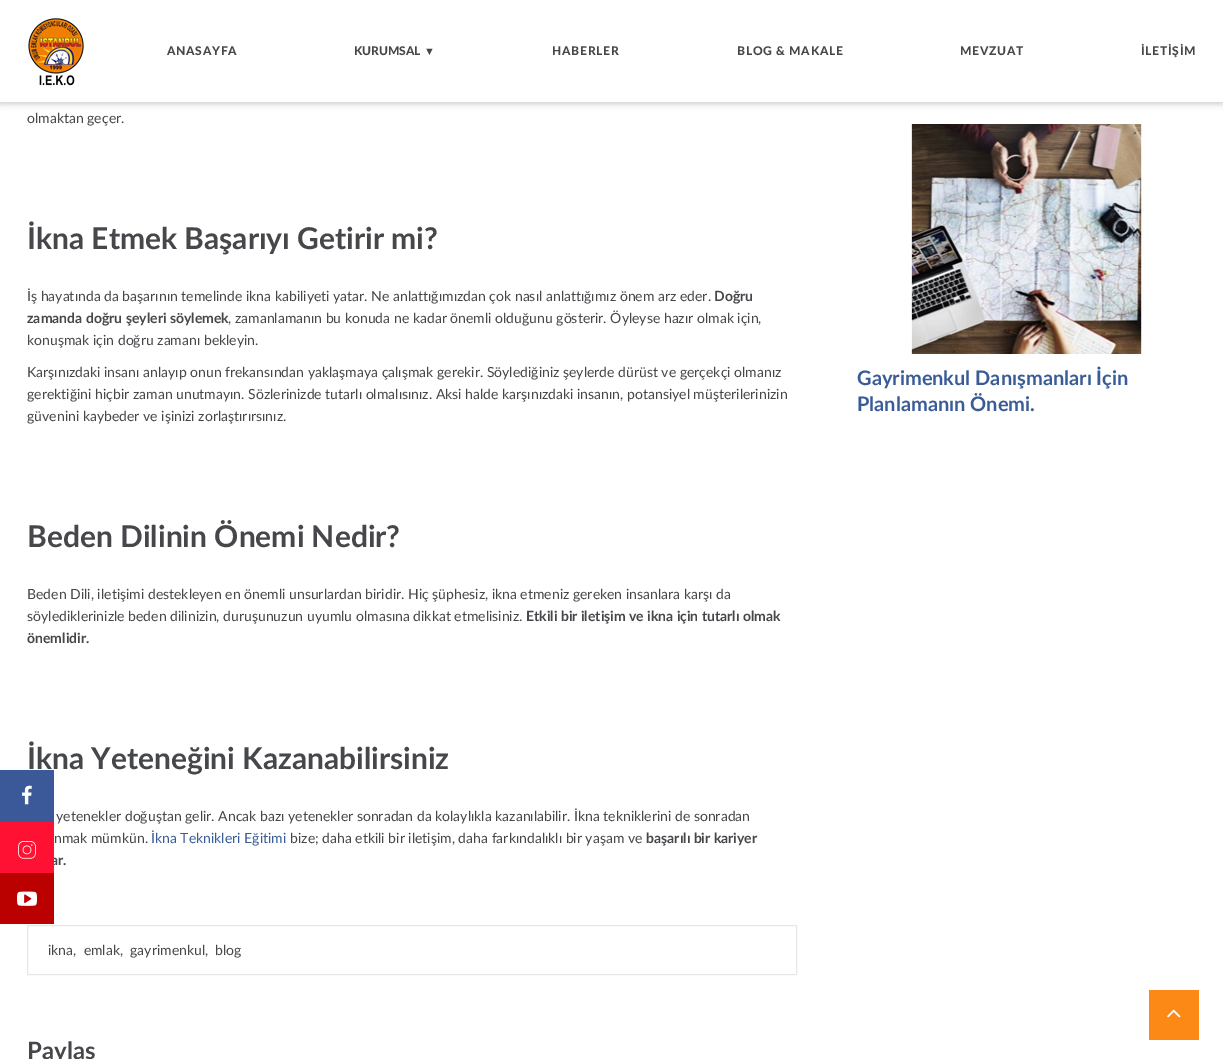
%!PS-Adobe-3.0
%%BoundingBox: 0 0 1223 1059
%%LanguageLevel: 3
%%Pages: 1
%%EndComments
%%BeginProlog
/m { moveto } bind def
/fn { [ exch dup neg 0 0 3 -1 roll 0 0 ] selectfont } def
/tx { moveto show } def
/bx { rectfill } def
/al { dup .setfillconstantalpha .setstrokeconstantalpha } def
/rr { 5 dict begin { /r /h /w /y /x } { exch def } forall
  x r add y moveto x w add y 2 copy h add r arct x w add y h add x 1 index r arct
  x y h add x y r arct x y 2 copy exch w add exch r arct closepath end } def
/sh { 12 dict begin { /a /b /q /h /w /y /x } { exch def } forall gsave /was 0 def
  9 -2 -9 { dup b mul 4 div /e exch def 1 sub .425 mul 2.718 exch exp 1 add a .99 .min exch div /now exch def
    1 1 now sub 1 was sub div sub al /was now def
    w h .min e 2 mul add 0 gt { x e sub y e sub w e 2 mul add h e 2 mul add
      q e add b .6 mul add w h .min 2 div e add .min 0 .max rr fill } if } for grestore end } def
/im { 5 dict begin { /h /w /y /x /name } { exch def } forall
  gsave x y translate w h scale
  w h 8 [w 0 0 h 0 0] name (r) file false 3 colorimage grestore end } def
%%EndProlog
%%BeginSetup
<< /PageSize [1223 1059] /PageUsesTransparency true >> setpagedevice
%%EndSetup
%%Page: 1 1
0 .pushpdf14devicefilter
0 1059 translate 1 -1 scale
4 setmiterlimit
1 setgray
0 0 1223 1059 bx
0 setgray
0 2 1223 102 0 3 0.2 sh
1 setgray
0 0 1223 102 bx
(image0.raw) 28 18 56 68 im
/Lato-Black 12 fn
0.275 0.278 0.29 setrgbcolor
167 55 m 0.75 0 (ANASAYFA) ashow
(KURUMSAL) 354 55 tx
/LiberationSans-Bold 11 fn
(▼) 424 55 tx
/Lato-Black 12 fn
552 55 m 0.75 0 (HABERLER) ashow
737 55 m 0.75 0 (BLOG & MAKALE) ashow
960 55 m 0.75 0 (MEVZUAT) ashow
1141 55 m 0.75 0 (İLETİŞİM) ashow
/Lato-Regular 14 fn
(olmaktan geçer.) 27 123 tx
/Lato-Bold 30 fn
(İkna Etmek Başarıyı Getirir mi?) 27 249 tx
/Lato-Regular 14 fn
(İş hayatında da başarının temelinde ikna kabiliyeti yatar. Ne anlattığımızdan çok nasıl anlattığımız önem arz eder.) 27 301 tx
/Lato-Bold 14 fn
(Doğru) 714 301 tx
(zamanda doğru şeyleri söylemek) 27 323 tx
/Lato-Regular 14 fn
(, zamanlamanın bu konuda ne kadar önemli olduğunu gösterir. Öyleyse hazır olmak için,) 228 323 tx
(konuşmak için doğru zamanı bekleyin.) 27 345 tx
(Karşınızdaki insanı anlayıp onun frekansından yaklaşmaya çalışmak gerekir. Söylediğiniz şeylerde dürüst ve gerçekçi olmanız) 27 377 tx
(gerektiğini hiçbir zaman unutmayın. Sözlerinizde tutarlı olmalısınız. Aksi halde karşınızdaki insanın, potansiyel müşterilerinizin) 27 399 tx
(güvenini kaybeder ve işinizi zorlaştırırsınız.) 27 421 tx
/Lato-Bold 30 fn
(Beden Dilinin Önemi Nedir?) 27 547 tx
/Lato-Regular 14 fn
(Beden Dili, iletişimi destekleyen en önemli unsurlardan biridir. Hiç şüphesiz, ikna etmeniz gereken insanlara karşı da) 27 599 tx
(söylediklerinizle beden dilinizin, duruşunuzun uyumlu olmasına dikkat etmelisiniz.) 27 621 tx
/Lato-Bold 14 fn
(Etkili bir iletişim ve ikna için tutarlı olmak) 526 621 tx
(önemlidir.) 27 643 tx
/Lato-Bold 30 fn
(İkna Yeteneğini Kazanabilirsiniz) 27 769 tx
/Lato-Regular 14 fn
(yetenekler doğuştan gelir. Ancak bazı yetenekler sonradan da kolaylıkla kazanılabilir. İkna tekniklerini de sonradan) 56 821 tx
(nmak mümkün.) 54 843 tx
0.224 0.357 0.596 setrgbcolor
(İkna Teknikleri Eğitimi) 151 843 tx
0.275 0.278 0.29 setrgbcolor
(bize; daha etkili bir iletişim, daha farkındalıklı bir yaşam ve) 290 843 tx
/Lato-Bold 14 fn
(başarılı bir kariyer) 646 843 tx
(ar.) 51 865 tx
0.906 setgray
27.5 925.5 769 49 rectstroke
/Lato-Regular 14 fn
0.275 0.278 0.29 setrgbcolor
(ikna,  emlak,  gayrimenkul,  blog) 48 955 tx
/Lato-Bold 24 fn
(Paylaş) 27 1059 tx
(image1.raw) 911 124 231 230 im
/Lato-Bold 20 fn
0.224 0.357 0.596 setrgbcolor
(Gayrimenkul Danışmanları İçin) 857 385 tx
(Planlamanın Önemi.) 857 411 tx
0.231 0.349 0.596 setrgbcolor
0 770 54 52 bx
(image2.raw) 22 785 10 20 im
1 0.067 0.2 setrgbcolor
0 822 54 51 bx
(image3.raw) 18 841 18 18 im
0.733 0 0 setrgbcolor
0 873 54 51 bx
(image4.raw) 17 891 20 15 im
0.988 0.533 0.086 setrgbcolor
1149 990 50 50 bx
(image5.raw) 1167 1009 14 9 im
.poppdf14devicefilter showpage
%%EOF
